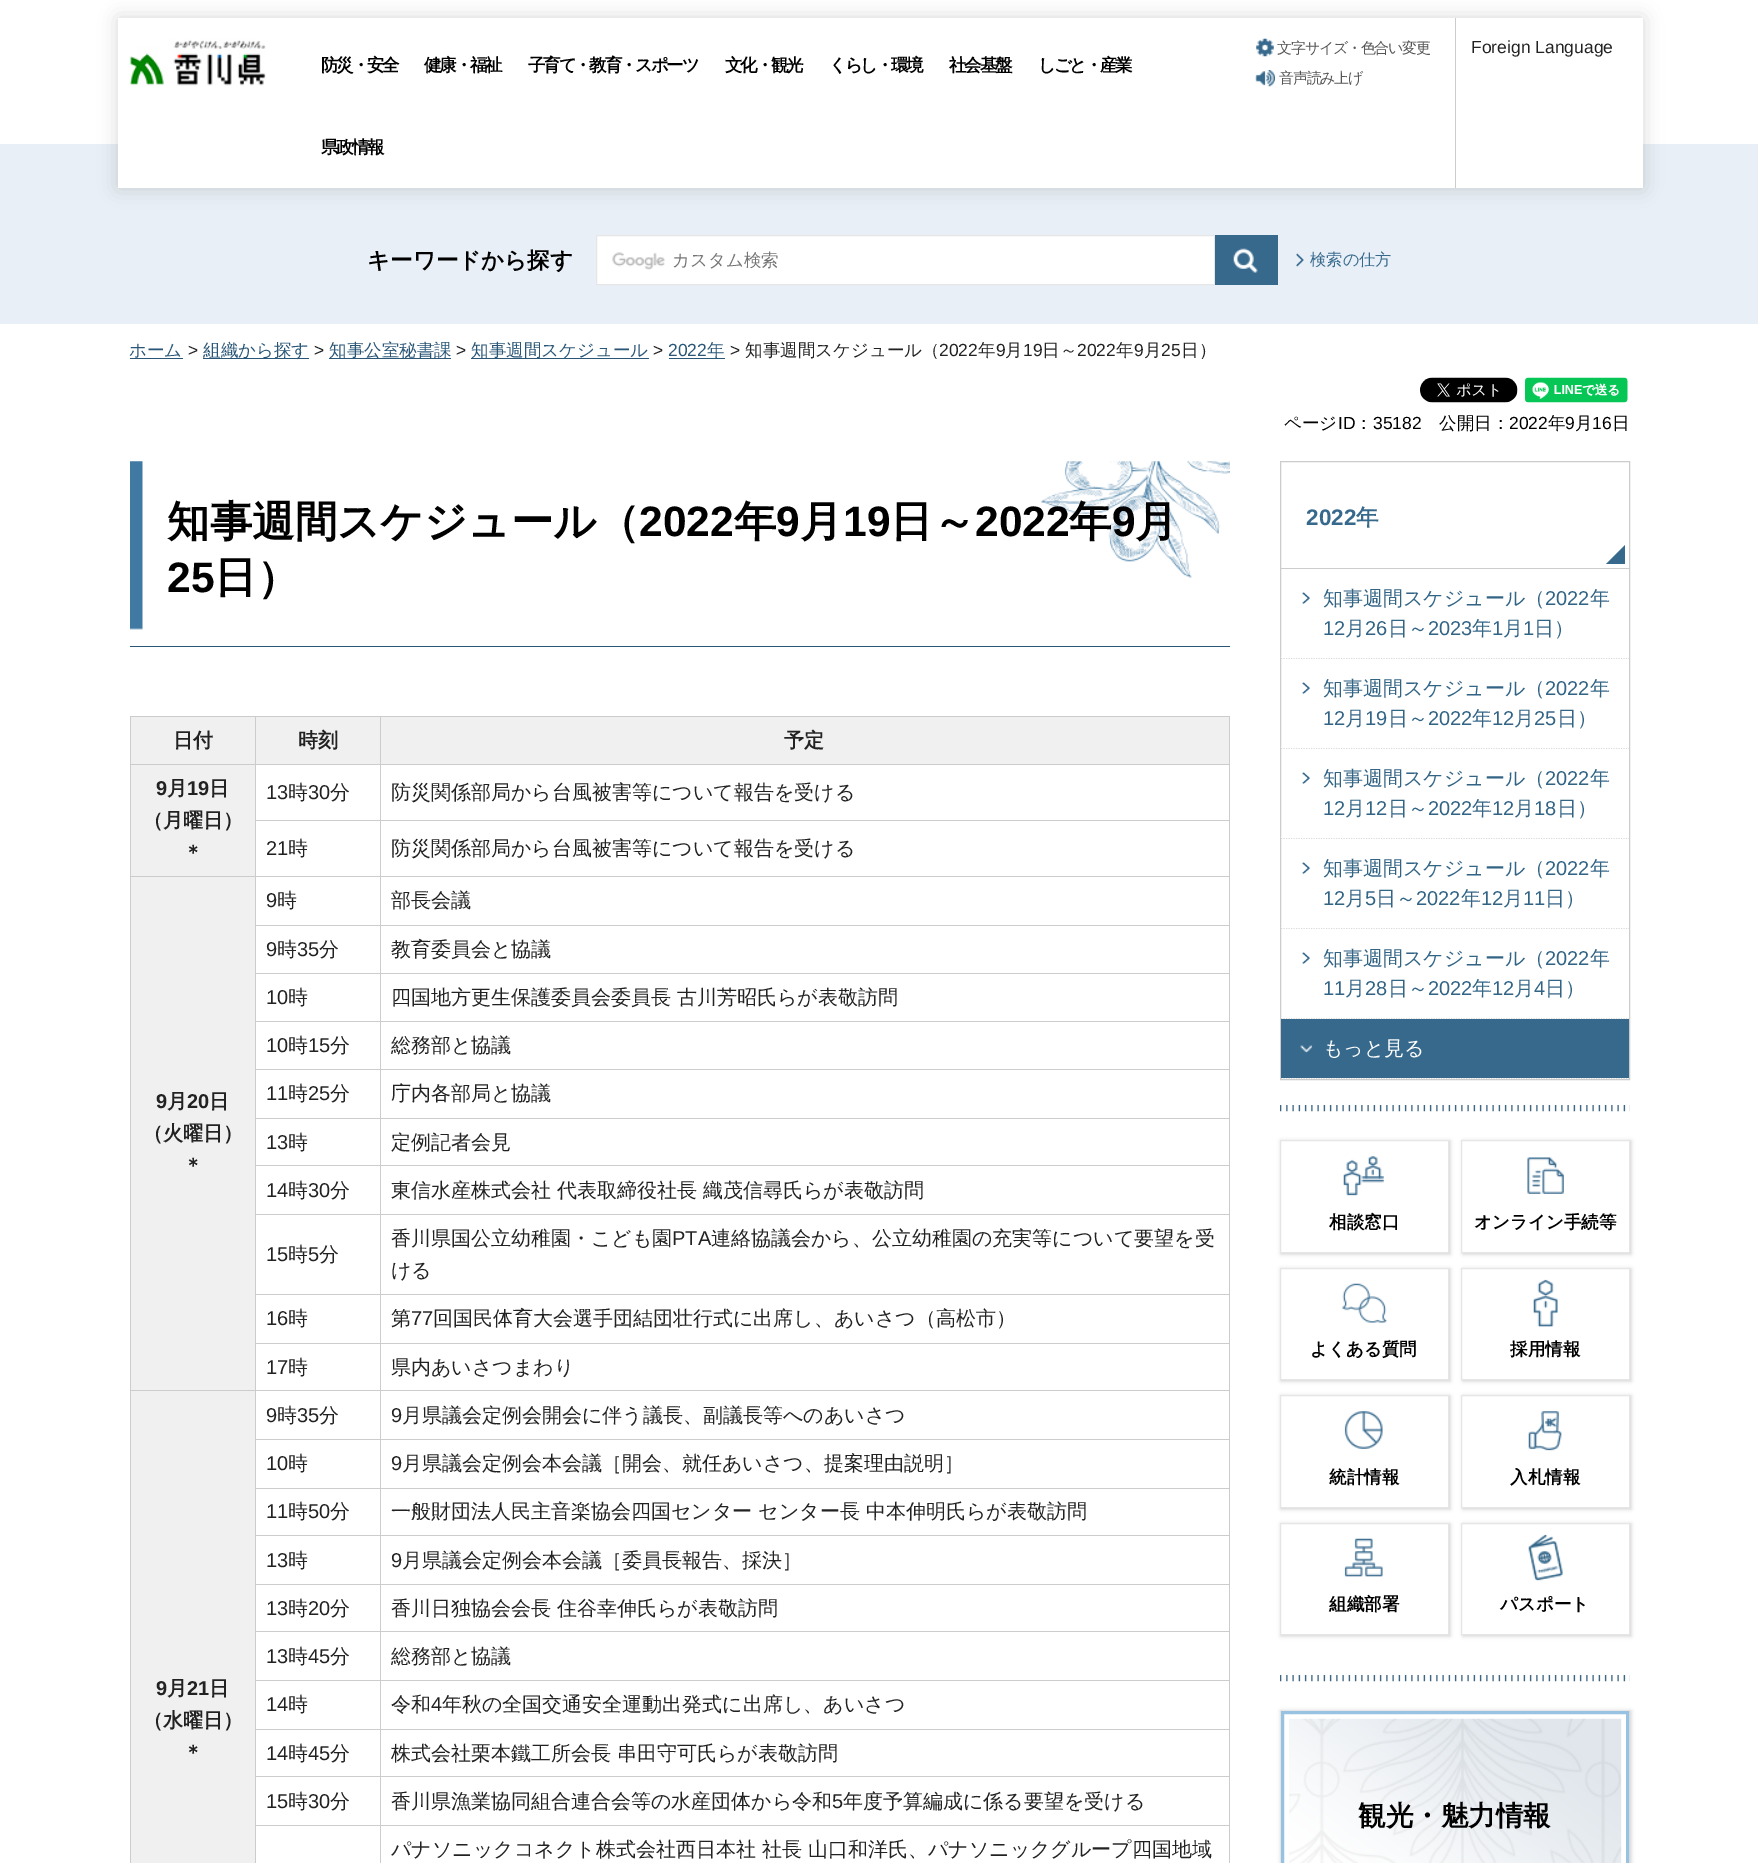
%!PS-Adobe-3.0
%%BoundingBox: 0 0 1758 1863
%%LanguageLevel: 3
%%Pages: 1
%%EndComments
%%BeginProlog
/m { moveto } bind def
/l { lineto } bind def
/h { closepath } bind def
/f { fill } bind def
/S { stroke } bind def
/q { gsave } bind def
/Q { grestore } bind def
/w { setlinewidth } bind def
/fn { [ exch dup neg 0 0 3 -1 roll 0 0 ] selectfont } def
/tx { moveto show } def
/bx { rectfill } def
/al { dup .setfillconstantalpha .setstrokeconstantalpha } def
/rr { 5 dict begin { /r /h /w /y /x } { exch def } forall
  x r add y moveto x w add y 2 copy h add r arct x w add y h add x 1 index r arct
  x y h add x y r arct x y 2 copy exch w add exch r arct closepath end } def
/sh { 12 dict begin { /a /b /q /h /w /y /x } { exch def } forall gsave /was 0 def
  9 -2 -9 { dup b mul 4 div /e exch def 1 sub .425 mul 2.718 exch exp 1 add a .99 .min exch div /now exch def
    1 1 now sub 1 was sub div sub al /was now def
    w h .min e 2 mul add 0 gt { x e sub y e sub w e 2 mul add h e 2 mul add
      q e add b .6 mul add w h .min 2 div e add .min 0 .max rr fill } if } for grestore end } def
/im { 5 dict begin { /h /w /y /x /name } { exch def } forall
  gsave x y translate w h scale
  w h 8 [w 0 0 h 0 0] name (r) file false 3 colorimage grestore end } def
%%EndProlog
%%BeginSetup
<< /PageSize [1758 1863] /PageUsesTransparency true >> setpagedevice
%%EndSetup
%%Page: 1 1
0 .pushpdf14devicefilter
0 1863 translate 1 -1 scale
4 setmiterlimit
1 setgray
0 0 1758 1863 bx
0.91 0.937 0.965 setrgbcolor
0 144 1758 180 bx
0 setgray
118 18 1525 170 0 9.5 0.15 sh
1 setgray
118 18 1525 170 bx
(image0.raw) 128 39 138 47 im
(image1.raw) 1256 38 18 19 im
/WenQuanYiZenHei-Medium 15 fn
0.333 setgray
1277 53 m -1.25 0 (文字サイズ・色合い変更) ashow
(image2.raw) 1255 70 20 17 im
1279 83 m -1.25 0 (音声読み上げ) ashow
0.8 setgray
1455 18 1 170 bx
/LiberationSans-Regular 17.5 fn
0.133 setgray
(Foreign Language) 1471 53 tx
/WenQuanYiZenHei-Bold 17.5 fn
0 setgray
321 71 m -2.25 0 (防災・安全) ashow
424 71 m -2.25 0 (健康・福祉) ashow
528 71 m -2.25 0 (子育て・教育・スポーツ) ashow
725 71 m -2.25 0 (文化・観光) ashow
829 71 m -2.25 0 (くらし・環境) ashow
949 71 m -2.25 0 (社会基盤) ashow
1038 71 m -2.25 0 (しごと・産業) ashow
321 153 m -2.25 0 (県政情報) ashow
/WenQuanYiZenHei-Bold 22.5 fn
(キーワードから探す) 367 268 tx
1 setgray
597 236 617 48 bx
(image3.raw) 612 252 53 18 im
0.902 setgray
596.5 235.5 618 49 rectstroke
/WenQuanYiZenHei-Medium 17.5 fn
0.459 setgray
(カスタム検索) 672 266 tx
0.216 0.412 0.553 setrgbcolor
1215 235 63 50 bx
(image4.raw) 1233 248 25 25 im
(image5.raw) 1296 253 8 14 im
/WenQuanYiZenHei-Medium 16.25 fn
(検索の仕方) 1310 265 tx
/WenQuanYiZenHei-Medium 17.5 fn
0.161 0.337 0.463 setrgbcolor
(ホーム) 129 356 tx
130 358 53 1 bx
/LiberationSans-Regular 17.5 fn
0.133 setgray
(>) 188 356 tx
0.161 0.337 0.463 setrgbcolor
203 358 106 1 bx
/WenQuanYiZenHei-Medium 17.5 fn
(組織から探す) 203 356 tx
/LiberationSans-Regular 17.5 fn
0.133 setgray
(>) 314 356 tx
0.161 0.337 0.463 setrgbcolor
329 358 122 1 bx
/WenQuanYiZenHei-Medium 17.5 fn
(知事公室秘書課) 329 356 tx
/LiberationSans-Regular 17.5 fn
0.133 setgray
(>) 456 356 tx
0.161 0.337 0.463 setrgbcolor
471 358 178 1 bx
/WenQuanYiZenHei-Medium 17.5 fn
(知事週間スケジュール) 471 356 tx
/LiberationSans-Regular 17.5 fn
0.133 setgray
(>) 653 356 tx
0.161 0.337 0.463 setrgbcolor
(2022) 668 356 tx
669 358 56 1 bx
/WenQuanYiZenHei-Medium 17.5 fn
(年) 707 356 tx
/LiberationSans-Regular 17.5 fn
0.133 setgray
(>) 730 356 tx
/WenQuanYiZenHei-Medium 17.5 fn
(知事週間スケジュール（) 745 356 tx
/LiberationSans-Regular 17.5 fn
(2022) 939 356 tx
/WenQuanYiZenHei-Medium 17.5 fn
(年) 978 356 tx
/LiberationSans-Regular 17.5 fn
(9) 996 356 tx
/WenQuanYiZenHei-Medium 17.5 fn
(月) 1005 356 tx
/LiberationSans-Regular 17.5 fn
(19) 1023 356 tx
/WenQuanYiZenHei-Medium 17.5 fn
(日～) 1042 356 tx
/LiberationSans-Regular 17.5 fn
(2022) 1077 356 tx
/WenQuanYiZenHei-Medium 17.5 fn
(年) 1116 356 tx
/LiberationSans-Regular 17.5 fn
(9) 1134 356 tx
/WenQuanYiZenHei-Medium 17.5 fn
(月) 1144 356 tx
/LiberationSans-Regular 17.5 fn
(25) 1161 356 tx
/WenQuanYiZenHei-Medium 17.5 fn
(日）) 1181 356 tx
(image6.raw) 1420 377 98 26 im
(image7.raw) 1525 377 103 26 im
0 setgray
(ページ) 1284 429 tx
/LiberationSans-Regular 17.5 fn
(ID) 1338 429 tx
/WenQuanYiZenHei-Medium 17.5 fn
(：) 1355 429 tx
/LiberationSans-Regular 17.5 fn
(35182) 1373 429 tx
/WenQuanYiZenHei-Medium 17.5 fn
(公開日：) 1439 429 tx
/LiberationSans-Regular 17.5 fn
(2022) 1509 429 tx
/WenQuanYiZenHei-Medium 17.5 fn
(年) 1548 429 tx
/LiberationSans-Regular 17.5 fn
(9) 1565 429 tx
/WenQuanYiZenHei-Medium 17.5 fn
(月) 1575 429 tx
/LiberationSans-Regular 17.5 fn
(16) 1592 429 tx
/WenQuanYiZenHei-Medium 17.5 fn
(日) 1612 429 tx
(image8.raw) 130 461 1100 169 im
0.161 0.337 0.463 setrgbcolor
130 646 1100 1 bx
/WenQuanYiZenHei-Bold 42.5 fn
0 setgray
(知事週間スケジュール（) 167 536 tx
/LiberationSans-Bold 42.5 fn
(2022) 639 536 tx
/WenQuanYiZenHei-Bold 42.5 fn
(年) 734 536 tx
/LiberationSans-Bold 42.5 fn
(9) 776 536 tx
/WenQuanYiZenHei-Bold 42.5 fn
(月) 800 536 tx
/LiberationSans-Bold 42.5 fn
(19) 843 536 tx
/WenQuanYiZenHei-Bold 42.5 fn
(日～) 890 536 tx
/LiberationSans-Bold 42.5 fn
(2022) 975 536 tx
/WenQuanYiZenHei-Bold 42.5 fn
(年) 1069 536 tx
/LiberationSans-Bold 42.5 fn
(9) 1112 536 tx
/WenQuanYiZenHei-Bold 42.5 fn
(月) 1135 536 tx
/LiberationSans-Bold 42.5 fn
(25) 167 592 tx
/WenQuanYiZenHei-Bold 42.5 fn
(日）) 214 592 tx
0.8 setgray
130 716 1100 1 bx
1229 716 1 1147 bx
130 716 1 1147 bx
0.941 setgray
131 717 124 47 bx
/WenQuanYiZenHei-Bold 20 fn
0.133 setgray
(日付) 173 747 tx
0.941 setgray
256 717 124 47 bx
0.8 setgray
380 764 850 1 bx
380 820 850 1 bx
380 876 850 1 bx
380 925 850 1 bx
380 973 850 1 bx
380 1021 850 1 bx
380 1069 850 1 bx
380 1118 850 1 bx
380 1165 850 1 bx
380 1214 850 1 bx
380 1294 850 1 bx
380 1343 850 1 bx
380 1390 850 1 bx
380 1439 850 1 bx
380 1488 850 1 bx
380 1535 850 1 bx
380 1584 850 1 bx
380 1631 850 1 bx
380 1680 850 1 bx
380 1729 850 1 bx
380 1776 850 1 bx
380 1825 850 1 bx
380 1825 1 38 bx
255 1825 126 1 bx
380 1776 1 50 bx
255 1776 126 1 bx
380 1729 1 49 bx
255 1729 126 1 bx
380 1680 1 50 bx
255 1680 126 1 bx
380 1631 1 50 bx
255 1631 126 1 bx
380 1584 1 49 bx
255 1584 126 1 bx
380 1535 1 50 bx
255 1535 126 1 bx
380 1488 1 48 bx
255 1488 126 1 bx
380 1439 1 50 bx
255 1439 126 1 bx
380 1390 1 50 bx
255 1390 126 1 bx
380 1343 1 48 bx
255 1343 126 1 bx
380 1294 1 50 bx
255 1294 126 1 bx
380 1214 1 81 bx
255 1214 126 1 bx
380 1165 1 50 bx
255 1165 126 1 bx
380 1118 1 48 bx
255 1118 126 1 bx
380 1069 1 50 bx
255 1069 126 1 bx
380 1021 1 49 bx
255 1021 126 1 bx
380 973 1 50 bx
255 973 126 1 bx
380 925 1 49 bx
255 925 126 1 bx
380 876 1 50 bx
255 876 126 1 bx
380 820 1 58 bx
255 820 126 1 bx
380 764 1 57 bx
255 764 126 1 bx
255 1825 1 38 bx
255 1776 1 50 bx
255 1729 1 49 bx
255 1680 1 50 bx
255 1631 1 50 bx
255 1584 1 49 bx
255 1535 1 50 bx
255 1488 1 48 bx
255 1439 1 50 bx
255 1390 1 50 bx
130 1390 126 1 bx
255 1343 1 48 bx
255 1294 1 50 bx
255 1214 1 81 bx
255 1165 1 50 bx
255 1118 1 48 bx
255 1069 1 50 bx
255 1021 1 49 bx
255 973 1 50 bx
255 925 1 49 bx
255 876 1 50 bx
130 876 126 1 bx
255 820 1 58 bx
255 764 1 57 bx
130 764 126 1 bx
255 716 1 49 bx
0.133 setgray
(時刻) 298 747 tx
0.941 setgray
381 717 848 47 bx
0.8 setgray
380 716 1 49 bx
0.133 setgray
(予定) 784 747 tx
0.941 setgray
131 765 124 111 bx
/LiberationSans-Bold 20 fn
0.133 setgray
(9) 156 795 tx
/WenQuanYiZenHei-Bold 20 fn
(月) 167 795 tx
/LiberationSans-Bold 20 fn
(19) 187 795 tx
/WenQuanYiZenHei-Bold 20 fn
(日) 209 795 tx
(（月曜日）) 143 827 tx
(＊) 183 859 tx
/LiberationSans-Regular 20 fn
(13) 266 799 tx
/WenQuanYiZenHei-Medium 20 fn
(時) 288 799 tx
/LiberationSans-Regular 20 fn
(30) 308 799 tx
/WenQuanYiZenHei-Medium 20 fn
(分) 330 799 tx
(防災関係部局から台風被害等について報告を受ける) 391 799 tx
/LiberationSans-Regular 20 fn
(21) 266 855 tx
/WenQuanYiZenHei-Medium 20 fn
(時) 288 855 tx
(防災関係部局から台風被害等について報告を受ける) 391 855 tx
/LiberationSans-Regular 20 fn
(9) 266 907 tx
/WenQuanYiZenHei-Medium 20 fn
(時) 277 907 tx
(部長会議) 391 907 tx
0.941 setgray
131 877 124 513 bx
/LiberationSans-Bold 20 fn
0.133 setgray
(9) 156 1108 tx
/WenQuanYiZenHei-Bold 20 fn
(月) 167 1108 tx
/LiberationSans-Bold 20 fn
(20) 187 1108 tx
/WenQuanYiZenHei-Bold 20 fn
(日) 209 1108 tx
(（火曜日）) 143 1140 tx
(＊) 183 1172 tx
/LiberationSans-Regular 20 fn
(9) 266 956 tx
/WenQuanYiZenHei-Medium 20 fn
(時) 277 956 tx
/LiberationSans-Regular 20 fn
(35) 297 956 tx
/WenQuanYiZenHei-Medium 20 fn
(分) 319 956 tx
(教育委員会と協議) 391 956 tx
/LiberationSans-Regular 20 fn
(10) 266 1004 tx
/WenQuanYiZenHei-Medium 20 fn
(時) 288 1004 tx
(四国地方更生保護委員会委員長 古川芳昭氏らが表敬訪問) 391 1004 tx
/LiberationSans-Regular 20 fn
(10) 266 1052 tx
/WenQuanYiZenHei-Medium 20 fn
(時) 288 1052 tx
/LiberationSans-Regular 20 fn
(15) 308 1052 tx
/WenQuanYiZenHei-Medium 20 fn
(分) 330 1052 tx
(総務部と協議) 391 1052 tx
/LiberationSans-Regular 20 fn
(11) 266 1100 tx
/WenQuanYiZenHei-Medium 20 fn
(時) 288 1100 tx
/LiberationSans-Regular 20 fn
(25) 308 1100 tx
/WenQuanYiZenHei-Medium 20 fn
(分) 330 1100 tx
(庁内各部局と協議) 391 1100 tx
/LiberationSans-Regular 20 fn
(13) 266 1149 tx
/WenQuanYiZenHei-Medium 20 fn
(時) 288 1149 tx
(定例記者会見) 391 1149 tx
/LiberationSans-Regular 20 fn
(14) 266 1197 tx
/WenQuanYiZenHei-Medium 20 fn
(時) 288 1197 tx
/LiberationSans-Regular 20 fn
(30) 308 1197 tx
/WenQuanYiZenHei-Medium 20 fn
(分) 330 1197 tx
(東信水産株式会社 代表取締役社長 織茂信尋氏らが表敬訪問) 391 1197 tx
/LiberationSans-Regular 20 fn
(15) 266 1261 tx
/WenQuanYiZenHei-Medium 20 fn
(時) 288 1261 tx
/LiberationSans-Regular 20 fn
(5) 308 1261 tx
/WenQuanYiZenHei-Medium 20 fn
(分) 319 1261 tx
(香川県国公立幼稚園・こども園) 391 1245 tx
/LiberationSans-Regular 20 fn
(PTA) 672 1245 tx
/WenQuanYiZenHei-Medium 20 fn
(連絡協議会から、公立幼稚園の充実等について要望を受) 711 1245 tx
(ける) 391 1277 tx
/LiberationSans-Regular 20 fn
(16) 266 1325 tx
/WenQuanYiZenHei-Medium 20 fn
(時) 288 1325 tx
(第) 391 1325 tx
/LiberationSans-Regular 20 fn
(77) 411 1325 tx
/WenQuanYiZenHei-Medium 20 fn
(回国民体育大会選手団結団壮行式に出席し、あいさつ（高松市）) 433 1325 tx
/LiberationSans-Regular 20 fn
(17) 266 1374 tx
/WenQuanYiZenHei-Medium 20 fn
(時) 288 1374 tx
(県内あいさつまわり) 391 1374 tx
/LiberationSans-Regular 20 fn
(9) 266 1422 tx
/WenQuanYiZenHei-Medium 20 fn
(時) 277 1422 tx
/LiberationSans-Regular 20 fn
(35) 297 1422 tx
/WenQuanYiZenHei-Medium 20 fn
(分) 319 1422 tx
/LiberationSans-Regular 20 fn
(9) 391 1422 tx
/WenQuanYiZenHei-Medium 20 fn
(月県議会定例会開会に伴う議長、副議長等へのあいさつ) 402 1422 tx
0.941 setgray
131 1391 124 472 bx
/LiberationSans-Bold 20 fn
0.133 setgray
(9) 156 1695 tx
/WenQuanYiZenHei-Bold 20 fn
(月) 167 1695 tx
/LiberationSans-Bold 20 fn
(21) 187 1695 tx
/WenQuanYiZenHei-Bold 20 fn
(日) 209 1695 tx
(（水曜日）) 143 1727 tx
(＊) 183 1759 tx
/LiberationSans-Regular 20 fn
(10) 266 1470 tx
/WenQuanYiZenHei-Medium 20 fn
(時) 288 1470 tx
/LiberationSans-Regular 20 fn
(9) 391 1470 tx
/WenQuanYiZenHei-Medium 20 fn
(月県議会定例会本会議［開会、就任あいさつ、提案理由説明］) 402 1470 tx
/LiberationSans-Regular 20 fn
(11) 266 1518 tx
/WenQuanYiZenHei-Medium 20 fn
(時) 288 1518 tx
/LiberationSans-Regular 20 fn
(50) 308 1518 tx
/WenQuanYiZenHei-Medium 20 fn
(分) 330 1518 tx
(一般財団法人民主音楽協会四国センター センター長 中本伸明氏らが表敬訪問) 391 1518 tx
/LiberationSans-Regular 20 fn
(13) 266 1567 tx
/WenQuanYiZenHei-Medium 20 fn
(時) 288 1567 tx
/LiberationSans-Regular 20 fn
(9) 391 1567 tx
/WenQuanYiZenHei-Medium 20 fn
(月県議会定例会本会議［委員長報告、採決］) 402 1567 tx
/LiberationSans-Regular 20 fn
(13) 266 1615 tx
/WenQuanYiZenHei-Medium 20 fn
(時) 288 1615 tx
/LiberationSans-Regular 20 fn
(20) 308 1615 tx
/WenQuanYiZenHei-Medium 20 fn
(分) 330 1615 tx
(香川日独協会会長 住谷幸伸氏らが表敬訪問) 391 1615 tx
/LiberationSans-Regular 20 fn
(13) 266 1663 tx
/WenQuanYiZenHei-Medium 20 fn
(時) 288 1663 tx
/LiberationSans-Regular 20 fn
(45) 308 1663 tx
/WenQuanYiZenHei-Medium 20 fn
(分) 330 1663 tx
(総務部と協議) 391 1663 tx
/LiberationSans-Regular 20 fn
(14) 266 1711 tx
/WenQuanYiZenHei-Medium 20 fn
(時) 288 1711 tx
(令和) 391 1711 tx
/LiberationSans-Regular 20 fn
(4) 431 1711 tx
/WenQuanYiZenHei-Medium 20 fn
(年秋の全国交通安全運動出発式に出席し、あいさつ) 442 1711 tx
/LiberationSans-Regular 20 fn
(14) 266 1760 tx
/WenQuanYiZenHei-Medium 20 fn
(時) 288 1760 tx
/LiberationSans-Regular 20 fn
(45) 308 1760 tx
/WenQuanYiZenHei-Medium 20 fn
(分) 330 1760 tx
(株式会社栗本鐵工所会長 串田守可氏らが表敬訪問) 391 1760 tx
/LiberationSans-Regular 20 fn
(15) 266 1808 tx
/WenQuanYiZenHei-Medium 20 fn
(時) 288 1808 tx
/LiberationSans-Regular 20 fn
(30) 308 1808 tx
/WenQuanYiZenHei-Medium 20 fn
(分) 330 1808 tx
(香川県漁業協同組合連合会等の水産団体から令和) 391 1808 tx
/LiberationSans-Regular 20 fn
(5) 832 1808 tx
/WenQuanYiZenHei-Medium 20 fn
(年度予算編成に係る要望を受ける) 843 1808 tx
(パナソニックコネクト株式会社西日本社 社長 山口和洋氏、パナソニックグループ四国地域) 391 1856 tx
0.8 setgray
1280.5 461.5 349 618 rectstroke
1281 568 348 1 bx
/LiberationSans-Bold 22.5 fn
0.216 0.412 0.553 setrgbcolor
(2022) 1306 525 tx
/WenQuanYiZenHei-Bold 22.5 fn
(年) 1356 525 tx
1625 564 m 1606 564 l 1625 545 l h f
0.8 setgray
1.2 w
[1.25 1.25] 0 setdash
1281 658 m 1629 658 l S
1 setgray
1281 657 348 1 bx
(image9.raw) 1302 592 8 12 im
/WenQuanYiZenHei-Medium 20 fn
0.196 0.392 0.522 setrgbcolor
(知事週間スケジュール（) 1323 605 tx
/LiberationSans-Regular 20 fn
(2022) 1545 605 tx
/WenQuanYiZenHei-Medium 20 fn
(年) 1590 605 tx
/LiberationSans-Regular 20 fn
(12) 1323 635 tx
/WenQuanYiZenHei-Medium 20 fn
(月) 1345 635 tx
/LiberationSans-Regular 20 fn
(26) 1365 635 tx
/WenQuanYiZenHei-Medium 20 fn
(日～) 1388 635 tx
/LiberationSans-Regular 20 fn
(2023) 1428 635 tx
/WenQuanYiZenHei-Medium 20 fn
(年) 1472 635 tx
/LiberationSans-Regular 20 fn
(1) 1492 635 tx
/WenQuanYiZenHei-Medium 20 fn
(月) 1503 635 tx
/LiberationSans-Regular 20 fn
(1) 1523 635 tx
/WenQuanYiZenHei-Medium 20 fn
(日）) 1534 635 tx
0.8 setgray
1281 748 m 1629 748 l S
1 setgray
1281 747 348 1 bx
(image9.raw) 1302 682 8 12 im
0.196 0.392 0.522 setrgbcolor
(知事週間スケジュール（) 1323 695 tx
/LiberationSans-Regular 20 fn
(2022) 1545 695 tx
/WenQuanYiZenHei-Medium 20 fn
(年) 1590 695 tx
/LiberationSans-Regular 20 fn
(12) 1323 725 tx
/WenQuanYiZenHei-Medium 20 fn
(月) 1345 725 tx
/LiberationSans-Regular 20 fn
(19) 1365 725 tx
/WenQuanYiZenHei-Medium 20 fn
(日～) 1388 725 tx
/LiberationSans-Regular 20 fn
(2022) 1428 725 tx
/WenQuanYiZenHei-Medium 20 fn
(年) 1472 725 tx
/LiberationSans-Regular 20 fn
(12) 1492 725 tx
/WenQuanYiZenHei-Medium 20 fn
(月) 1514 725 tx
/LiberationSans-Regular 20 fn
(25) 1534 725 tx
/WenQuanYiZenHei-Medium 20 fn
(日）) 1557 725 tx
0.8 setgray
1281 838 m 1629 838 l S
1 setgray
1281 837 348 1 bx
(image9.raw) 1302 772 8 12 im
0.196 0.392 0.522 setrgbcolor
(知事週間スケジュール（) 1323 785 tx
/LiberationSans-Regular 20 fn
(2022) 1545 785 tx
/WenQuanYiZenHei-Medium 20 fn
(年) 1590 785 tx
/LiberationSans-Regular 20 fn
(12) 1323 815 tx
/WenQuanYiZenHei-Medium 20 fn
(月) 1345 815 tx
/LiberationSans-Regular 20 fn
(12) 1365 815 tx
/WenQuanYiZenHei-Medium 20 fn
(日～) 1388 815 tx
/LiberationSans-Regular 20 fn
(2022) 1428 815 tx
/WenQuanYiZenHei-Medium 20 fn
(年) 1472 815 tx
/LiberationSans-Regular 20 fn
(12) 1492 815 tx
/WenQuanYiZenHei-Medium 20 fn
(月) 1514 815 tx
/LiberationSans-Regular 20 fn
(18) 1534 815 tx
/WenQuanYiZenHei-Medium 20 fn
(日）) 1557 815 tx
0.8 setgray
1281 928 m 1629 928 l S
1 setgray
1281 927 348 1 bx
(image9.raw) 1302 862 8 12 im
0.196 0.392 0.522 setrgbcolor
(知事週間スケジュール（) 1323 875 tx
/LiberationSans-Regular 20 fn
(2022) 1545 875 tx
/WenQuanYiZenHei-Medium 20 fn
(年) 1590 875 tx
/LiberationSans-Regular 20 fn
(12) 1323 905 tx
/WenQuanYiZenHei-Medium 20 fn
(月) 1345 905 tx
/LiberationSans-Regular 20 fn
(5) 1365 905 tx
/WenQuanYiZenHei-Medium 20 fn
(日～) 1376 905 tx
/LiberationSans-Regular 20 fn
(2022) 1416 905 tx
/WenQuanYiZenHei-Medium 20 fn
(年) 1461 905 tx
/LiberationSans-Regular 20 fn
(12) 1481 905 tx
/WenQuanYiZenHei-Medium 20 fn
(月) 1503 905 tx
/LiberationSans-Regular 20 fn
(11) 1523 905 tx
/WenQuanYiZenHei-Medium 20 fn
(日）) 1545 905 tx
0.8 setgray
1281 1018 m 1629 1018 l S
1 setgray
1281 1017 348 1 bx
(image9.raw) 1302 952 8 12 im
0.196 0.392 0.522 setrgbcolor
(知事週間スケジュール（) 1323 965 tx
/LiberationSans-Regular 20 fn
(2022) 1545 965 tx
/WenQuanYiZenHei-Medium 20 fn
(年) 1590 965 tx
/LiberationSans-Regular 20 fn
(11) 1323 995 tx
/WenQuanYiZenHei-Medium 20 fn
(月) 1345 995 tx
/LiberationSans-Regular 20 fn
(28) 1365 995 tx
/WenQuanYiZenHei-Medium 20 fn
(日～) 1388 995 tx
/LiberationSans-Regular 20 fn
(2022) 1428 995 tx
/WenQuanYiZenHei-Medium 20 fn
(年) 1472 995 tx
/LiberationSans-Regular 20 fn
(12) 1492 995 tx
/WenQuanYiZenHei-Medium 20 fn
(月) 1514 995 tx
/LiberationSans-Regular 20 fn
(4) 1534 995 tx
/WenQuanYiZenHei-Medium 20 fn
(日）) 1545 995 tx
0.8 setgray
1281 1078 m 1629 1078 l S
0.216 0.412 0.553 setrgbcolor
1281 1019 348 59 bx
(image10.raw) 1300 1045 13 8 im
1 setgray
(もっと見る) 1323 1055 tx
(image11.raw) 1280 1105 350 7 im
0.043 0.008 0.02 setrgbcolor
1281 1141 169 113 0 2 0.2 sh
1 setgray
1280.5 1140.5 m 1448.5 1140.5 l 1448.5 1252.5 l 1280.5 1252.5 l h q f Q
0.902 setgray
1 w
[] 0 setdash
S
(image12.raw) 1343 1156 41 40 im
/WenQuanYiZenHei-Bold 17.5 fn
0 setgray
(相談窓口) 1329 1228 tx
0.043 0.008 0.02 setrgbcolor
1463 1141 168 113 0 2 0.2 sh
1 setgray
1461.5 1140.5 m 1629.5 1140.5 l 1629.5 1252.5 l 1461.5 1252.5 l h q f Q
0.902 setgray
S
(image13.raw) 1527 1157 37 37 im
0 setgray
(オンライン手続等) 1474 1228 tx
0.043 0.008 0.02 setrgbcolor
1281 1269 169 112 0 2 0.2 sh
1 setgray
1280.5 1268.5 m 1448.5 1268.5 l 1448.5 1379.5 l 1280.5 1379.5 l h q f Q
0.902 setgray
S
(image14.raw) 1342 1283 45 40 im
0 setgray
(よくある質問) 1310 1355 tx
0.043 0.008 0.02 setrgbcolor
1463 1269 168 112 0 2 0.2 sh
1 setgray
1461.5 1268.5 m 1629.5 1268.5 l 1629.5 1379.5 l 1461.5 1379.5 l h q f Q
0.902 setgray
S
(image15.raw) 1533 1279 25 48 im
0 setgray
(採用情報) 1510 1355 tx
0.043 0.008 0.02 setrgbcolor
1281 1396 169 113 0 2 0.2 sh
1 setgray
1280.5 1395.5 m 1448.5 1395.5 l 1448.5 1507.5 l 1280.5 1507.5 l h q f Q
0.902 setgray
S
(image16.raw) 1344 1411 39 38 im
0 setgray
(統計情報) 1329 1483 tx
0.043 0.008 0.02 setrgbcolor
1463 1396 168 113 0 2 0.2 sh
1 setgray
1461.5 1395.5 m 1629.5 1395.5 l 1629.5 1507.5 l 1461.5 1507.5 l h q f Q
0.902 setgray
S
(image17.raw) 1528 1411 34 40 im
0 setgray
(入札情報) 1510 1483 tx
0.043 0.008 0.02 setrgbcolor
1281 1524 169 112 0 2 0.2 sh
1 setgray
1280.5 1523.5 m 1448.5 1523.5 l 1448.5 1634.5 l 1280.5 1634.5 l h q f Q
0.902 setgray
S
(image18.raw) 1344 1538 39 39 im
0 setgray
(組織部署) 1329 1610 tx
0.043 0.008 0.02 setrgbcolor
1463 1524 168 112 0 2 0.2 sh
1 setgray
1461.5 1523.5 m 1629.5 1523.5 l 1629.5 1634.5 l 1461.5 1634.5 l h q f Q
0.902 setgray
S
(image19.raw) 1528 1534 35 47 im
0 setgray
(パスポート) 1500 1610 tx
(image11.raw) 1280 1675 350 7 im
q
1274 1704 m 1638 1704 l 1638 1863 l 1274 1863 l h 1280 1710 m 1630 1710 l 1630 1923 l 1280 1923 l h eoclip newpath
0.043 0.008 0.02 setrgbcolor
1281 1711 350 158 0 2 0.2 sh
Q
0.902 setgray
1280.5 1710.5 349 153 rectstroke
0.596 0.761 0.882 setrgbcolor
3 w
1282.5 1712.5 345 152 rectstroke
(image20.raw) 1289 1718 333 145 im
/WenQuanYiZenHei-Bold 27.5 fn
0 setgray
(観光・魅力情報) 1358 1825 tx
.poppdf14devicefilter showpage
%%EOF
